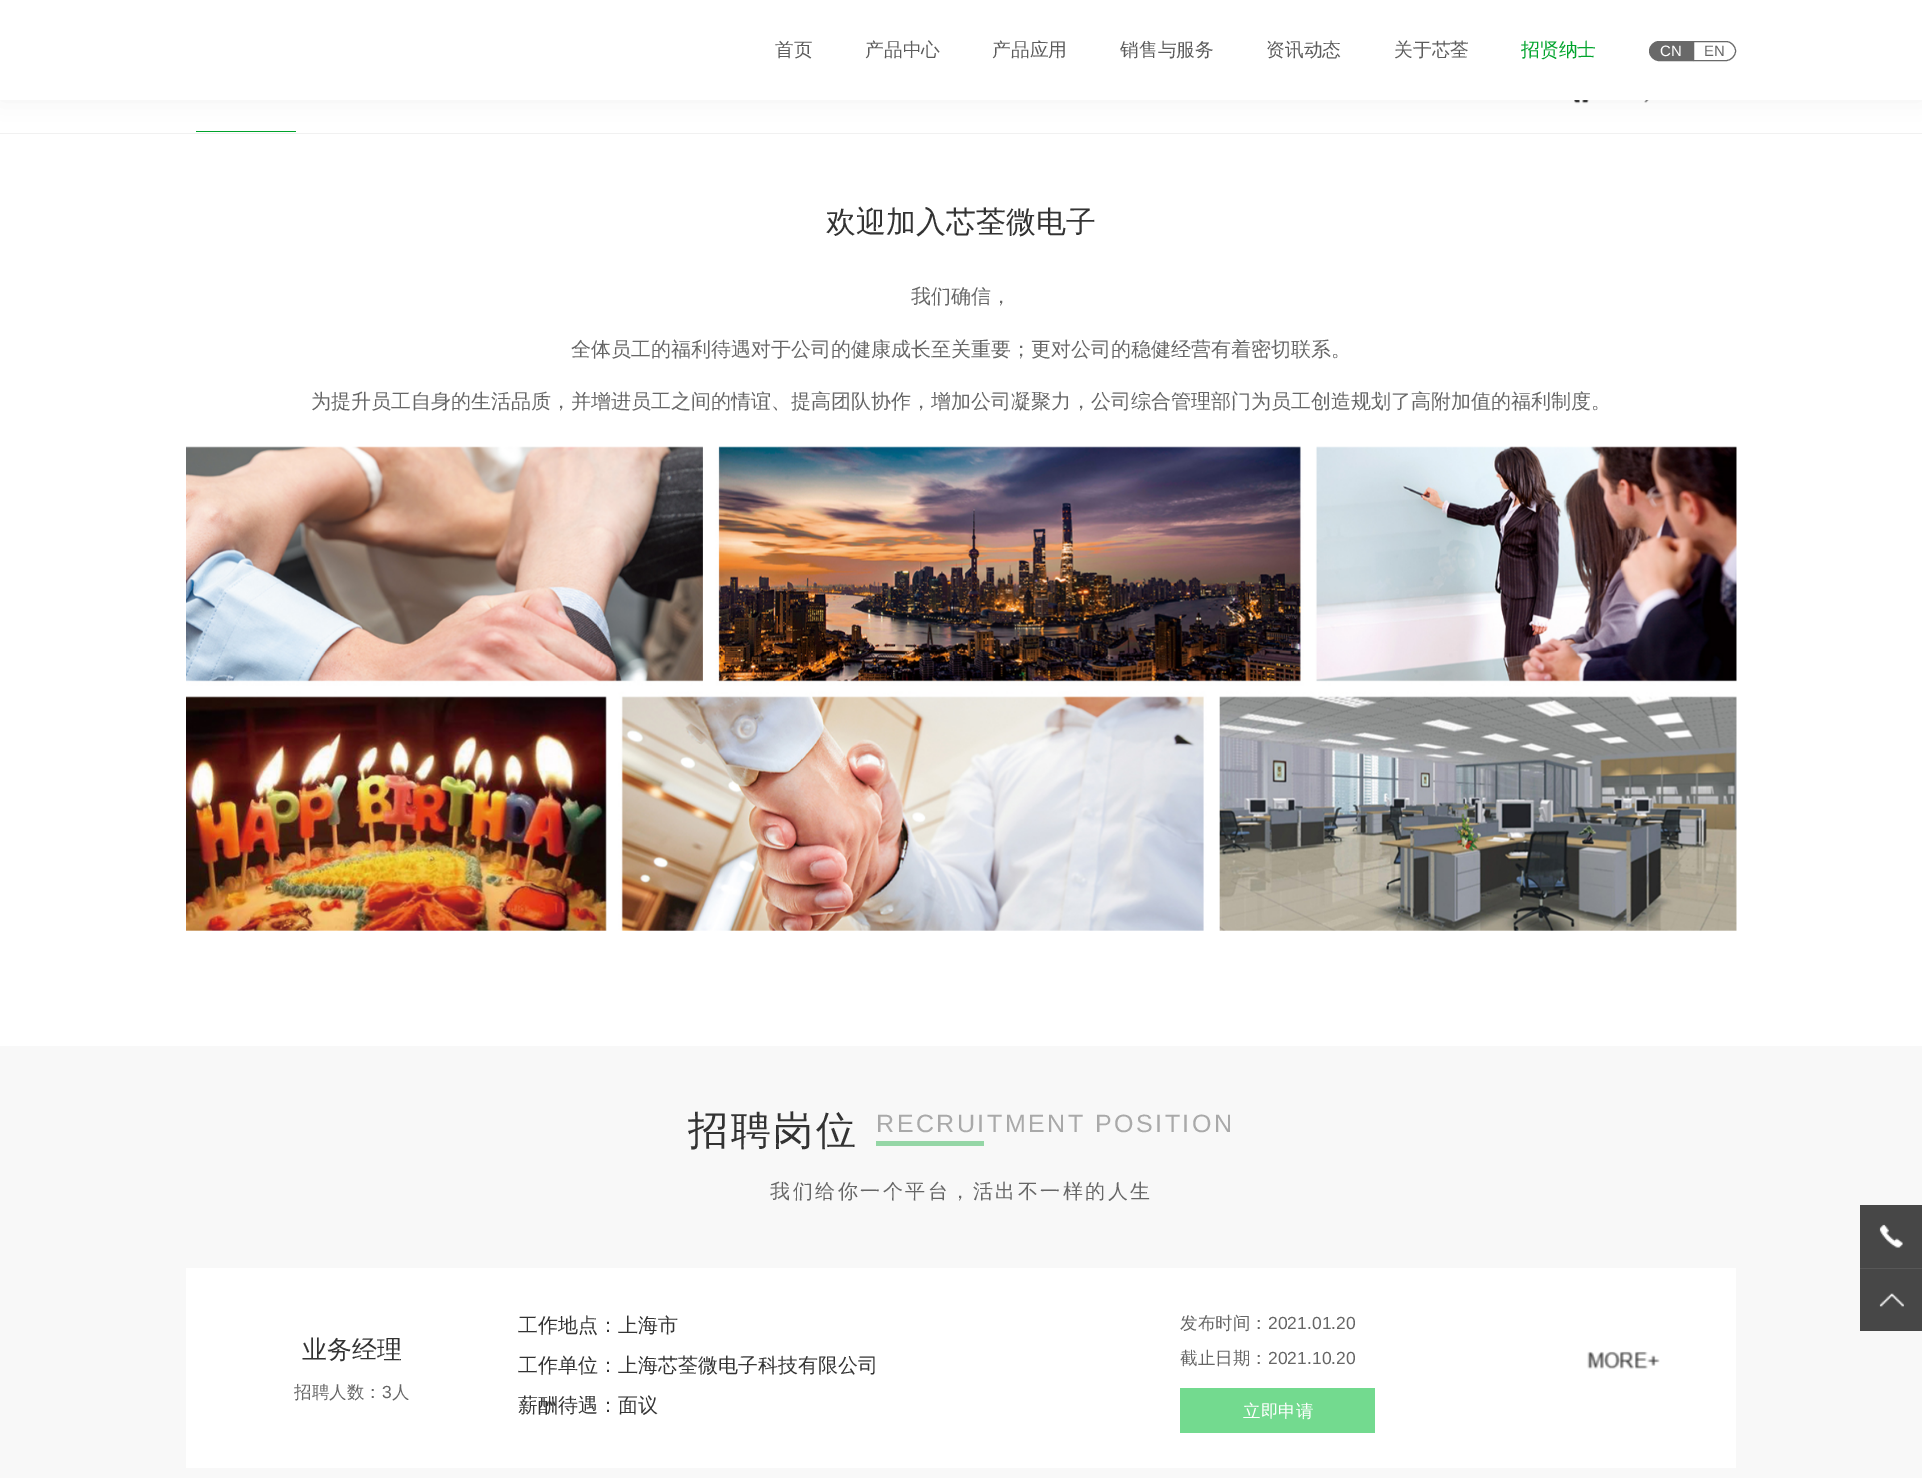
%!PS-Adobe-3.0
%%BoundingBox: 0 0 1922 1478
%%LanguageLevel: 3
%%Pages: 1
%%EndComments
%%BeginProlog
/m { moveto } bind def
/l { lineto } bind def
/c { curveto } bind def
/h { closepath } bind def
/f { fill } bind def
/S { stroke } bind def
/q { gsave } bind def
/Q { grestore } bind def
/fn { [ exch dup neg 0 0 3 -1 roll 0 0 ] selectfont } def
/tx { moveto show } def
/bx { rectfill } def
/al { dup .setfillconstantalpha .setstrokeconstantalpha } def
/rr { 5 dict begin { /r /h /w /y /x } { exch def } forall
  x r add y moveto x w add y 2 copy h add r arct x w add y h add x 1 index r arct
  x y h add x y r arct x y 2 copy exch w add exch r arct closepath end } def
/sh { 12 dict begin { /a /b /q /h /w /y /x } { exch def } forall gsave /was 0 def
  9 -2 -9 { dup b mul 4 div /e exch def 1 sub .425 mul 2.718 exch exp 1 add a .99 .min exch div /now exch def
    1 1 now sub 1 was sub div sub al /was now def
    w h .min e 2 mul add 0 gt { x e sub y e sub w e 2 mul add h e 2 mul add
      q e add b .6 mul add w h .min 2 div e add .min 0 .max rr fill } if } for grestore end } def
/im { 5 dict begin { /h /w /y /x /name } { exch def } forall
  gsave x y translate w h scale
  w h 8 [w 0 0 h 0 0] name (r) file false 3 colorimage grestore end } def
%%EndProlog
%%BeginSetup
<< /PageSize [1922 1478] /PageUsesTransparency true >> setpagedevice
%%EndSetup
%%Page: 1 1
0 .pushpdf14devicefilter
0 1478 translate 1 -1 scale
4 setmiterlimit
1 setgray
0 0 1922 1478 bx
0.945 setgray
0 133 1922 1 bx
(image0.raw) 1574 100 15 4 im
(image1.raw) 1644 100 5 3 im
0 0.643 0.173 setrgbcolor
196 131 100 1 bx
0 setgray
0 0 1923 100 0 12.5 0.06 sh
1 setgray
0 0 1922 100 bx
/WenQuanYiZenHei-Medium 18.75 fn
0.361 setgray
(首页) 775 56 tx
(产品中心) 865 56 tx
(产品应用) 992 56 tx
(销售与服务) 1120 56 tx
(资讯动态) 1266 56 tx
(关于芯荃) 1394 56 tx
0 0.643 0.173 setrgbcolor
(招贤纳士) 1521 56 tx
0.412 setgray
1659 41.5 m 1692.5 41.5 l 1692.5 60.5 l 1659 60.5 l 1654 60.5 1649.5 56 1649.5 51 c 1649.5 46 1654 41.5 1659 41.5 c h q f Q
S
/LiberationSans-Regular 15 fn
1 setgray
(CN) 1660 56 tx
0.412 setgray
1693.5 41.5 m 1726 41.5 l 1731 41.5 1735.5 46 1735.5 51 c 1735.5 56 1731 60.5 1726 60.5 c 1693.5 60.5 l h S
0.4 setgray
(EN) 1704 56 tx
/WenQuanYiZenHei-Medium 30 fn
0.2 setgray
(欢迎加入芯荃微电子) 826 232 tx
/WenQuanYiZenHei-Medium 20 fn
0.4 setgray
(我们确信，) 911 303 tx
(全体员工的福利待遇对于公司的健康成长至关重要；更对公司的稳健经营有着密切联系。) 571 356 tx
(为提升员工自身的生活品质，并增进员工之间的情谊、提高团队协作，增加公司凝聚力，公司综合管理部门为员工创造规划了高附加值的福利制度。) 311 408 tx
(image2.raw) 186 446 1551 485 im
0.973 setgray
0 1046 1922 432 bx
/WenQuanYiZenHei-Medium 40 fn
0.2 setgray
688 1144 m 2.5 0 (招聘岗位) ashow
/LiberationSans-Regular 25 fn
0.663 setgray
876 1132 m 2.5 0 (RECRUITMENT POSITION) ashow
0.584 0.839 0.651 setrgbcolor
876 1141 108 5 bx
/WenQuanYiZenHei-Medium 20 fn
0.4 setgray
770 1198 m 2.5 0 (我们给你一个平台，活出不一样的人生) ashow
1 setgray
186 1268 1550 200 bx
/WenQuanYiZenHei-Medium 25 fn
0.2 setgray
(业务经理) 302 1358 tx
/WenQuanYiZenHei-Medium 17.5 fn
0.4 setgray
(招聘人数：) 294 1398 tx
/LiberationSans-Regular 17.5 fn
(3) 382 1398 tx
/WenQuanYiZenHei-Medium 17.5 fn
(人) 392 1398 tx
/WenQuanYiZenHei-Medium 20 fn
0.2 setgray
(工作地点：上海市) 518 1332 tx
(工作单位：上海芯荃微电子科技有限公司) 518 1372 tx
(薪酬待遇：面议) 518 1412 tx
/WenQuanYiZenHei-Medium 17.5 fn
0.4 setgray
(发布时间：) 1180 1329 tx
/LiberationSans-Regular 17.5 fn
(2021.01.20) 1268 1329 tx
/WenQuanYiZenHei-Medium 17.5 fn
(截止日期：) 1180 1364 tx
/LiberationSans-Regular 17.5 fn
(2021.10.20) 1268 1364 tx
0.451 0.855 0.561 setrgbcolor
1180 1388 195 45 bx
/WenQuanYiZenHei-Medium 17.5 fn
1 setgray
(立即申请) 1243 1417 tx
(image3.raw) 1587 1351 73 18 im
0.278 setgray
1860 1205 62 126 bx
0.341 setgray
1860 1268 62 1 bx
(image4.raw) 1879 1224 24 24 im
(image5.raw) 1879 1293 25 14 im
.poppdf14devicefilter showpage
%%EOF
